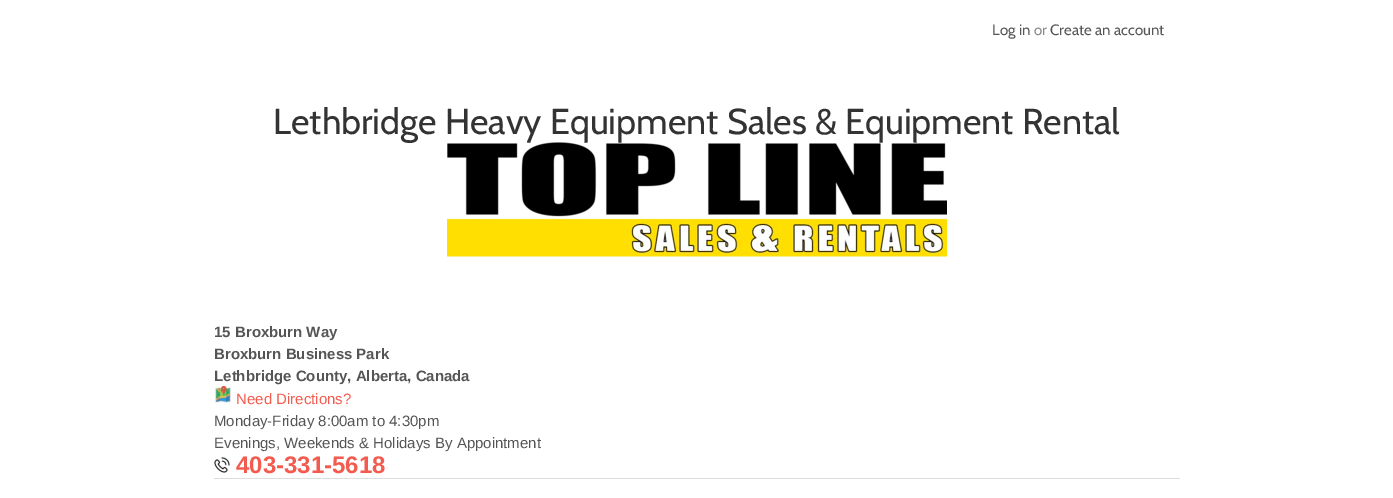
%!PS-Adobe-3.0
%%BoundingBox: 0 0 1393 498
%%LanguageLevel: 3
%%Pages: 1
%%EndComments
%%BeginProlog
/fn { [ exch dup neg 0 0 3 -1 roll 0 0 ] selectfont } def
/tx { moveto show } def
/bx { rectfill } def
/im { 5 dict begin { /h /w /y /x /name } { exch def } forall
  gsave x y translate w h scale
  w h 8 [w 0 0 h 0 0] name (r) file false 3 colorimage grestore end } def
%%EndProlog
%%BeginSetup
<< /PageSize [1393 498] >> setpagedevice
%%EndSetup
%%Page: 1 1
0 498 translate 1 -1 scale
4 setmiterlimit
1 setgray
0 0 1393 498 bx
/Cabin-Regular 15 fn
0.333 setgray
(Log in) 992 35 tx
0.533 setgray
(or) 1034 35 tx
0.333 setgray
(Create an account) 1050 35 tx
/Cabin-Regular 36 fn
0.2 setgray
(Lethbridge Heavy Equipment Sales & Equipment Rental) 273 134 tx
(image0.raw) 447 142 500 115 im
/LiberationSans-Bold 15 fn
0.333 setgray
(15 Broxburn Way) 214 337 tx
(Broxburn Business Park) 214 359 tx
(Lethbridge County, Alberta, Canada) 214 381 tx
(image1.raw) 215 386 16 17 im
/LiberationSans-Regular 15 fn
0.957 0.357 0.31 setrgbcolor
(Need Directions?) 236 404 tx
0.333 setgray
(Monday-Friday 8:00am to 4:30pm) 214 426 tx
(Evenings, Weekends & Holidays By Appointment) 214 448 tx
(image2.raw) 214 457 16 16 im
/LiberationSans-Bold 24 fn
0.957 0.357 0.31 setrgbcolor
(403-331-5618) 236 473 tx
0.867 setgray
214 478 966 1 bx
showpage
%%EOF
